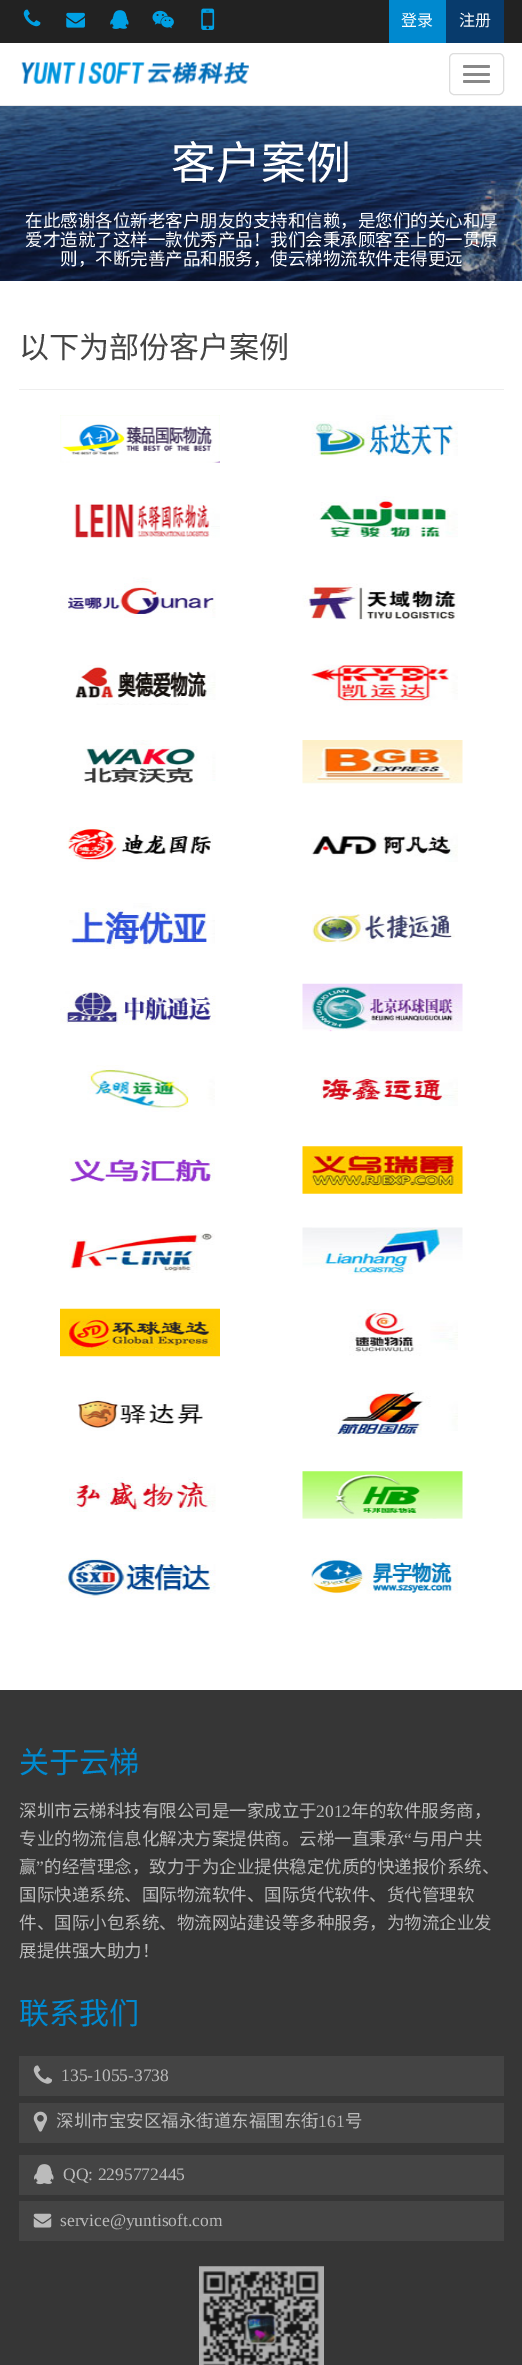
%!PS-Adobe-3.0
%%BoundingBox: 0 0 522 2365
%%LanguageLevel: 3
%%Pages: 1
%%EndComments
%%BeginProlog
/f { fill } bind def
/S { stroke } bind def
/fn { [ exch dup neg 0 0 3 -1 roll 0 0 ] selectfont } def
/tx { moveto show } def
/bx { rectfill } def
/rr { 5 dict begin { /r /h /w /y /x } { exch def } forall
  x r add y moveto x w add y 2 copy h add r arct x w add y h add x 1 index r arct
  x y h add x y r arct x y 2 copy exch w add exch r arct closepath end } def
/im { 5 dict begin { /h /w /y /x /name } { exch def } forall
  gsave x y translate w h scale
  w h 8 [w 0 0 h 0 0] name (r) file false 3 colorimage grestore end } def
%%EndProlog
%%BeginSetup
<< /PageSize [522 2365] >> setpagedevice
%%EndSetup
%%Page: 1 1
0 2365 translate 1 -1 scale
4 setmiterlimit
1 setgray
0 0 522 2365 bx
0.906 setgray
0 105 522 1 bx
0.133 setgray
0 0 522 43 bx
(image0.raw) 23 9 18 18 im
(image1.raw) 66 12 19 16 im
(image2.raw) 110 10 19 19 im
(image3.raw) 152 10 22 19 im
(image4.raw) 201 8 14 22 im
0 0.537 0.812 setrgbcolor
389 0 57 43 bx
/NotoSansCJKSC-Regular 16 fn
1 setgray
(登录) 401 26 tx
0.031 0.231 0.424 setrgbcolor
446 0 58 43 bx
1 setgray
(注册) 459 26 tx
(image5.raw) 21 62 228 22 im
0.867 setgray
449.5 53.5 54 41 4.5 rr S
0.533 setgray
463 65 27 3 1.5 rr f
463 73 27 3 1.5 rr f
463 80 27 3 1.5 rr f
(image6.raw) 0 106 522 175 im
/NotoSansCJKSC-Regular 45 fn
1 setgray
(客户案例) 171 179 tx
/NotoSansCJKSC-Regular 17.5 fn
(在此感谢各位新老客户朋友的支持和信赖，是您们的关心和厚) 25 227 tx
(爱才造就了这样一款优秀产品！我们会秉承顾客至上的一贯原) 25 246 tx
(则，不断完善产品和服务，使云梯物流软件走得更远) 60 265 tx
/NotoSansCJKSC-Regular 30 fn
0.267 setgray
(以下为部份客户案例) 19 358 tx
0.933 setgray
19 389 485 1 bx
(image7.raw) 60 415 160 48 im
(image8.raw) 311 415 147 41 im
(image9.raw) 74 502 146 36 im
(image10.raw) 313 496 145 42 im
(image11.raw) 60 577 156 41 im
(image12.raw) 302 583 156 37 im
(image13.raw) 74 665 142 40 im
(image14.raw) 311 664 147 42 im
(image15.raw) 83 740 133 45 im
(image16.raw) 302 740 161 44 im
(image17.raw) 66 827 147 35 im
(image18.raw) 311 833 147 29 im
(image19.raw) 69 903 146 46 im
(image20.raw) 312 914 143 30 im
(image21.raw) 60 990 156 35 im
(image22.raw) 302 983 161 49 im
(image23.raw) 87 1065 128 47 im
(image24.raw) 320 1077 138 29 im
(image25.raw) 69 1158 146 25 im
(image26.raw) 302 1146 161 48 im
(image27.raw) 69 1233 146 40 im
(image28.raw) 302 1227 161 48 im
(image29.raw) 60 1308 160 49 im
(image30.raw) 349 1309 109 47 im
(image31.raw) 78 1397 125 34 im
(image32.raw) 330 1390 128 47 im
(image33.raw) 69 1477 147 35 im
(image34.raw) 302 1471 161 48 im
(image35.raw) 60 1558 156 40 im
(image36.raw) 311 1558 147 36 im
0.212 setgray
0 1690 522 675 bx
0 0.537 0.812 setrgbcolor
(关于云梯) 19 1773 tx
/NotoSansCJKSC-Regular 17.5 fn
0.733 setgray
(深圳市云梯科技有限公司是一家成立于) 19 1817 tx
/LiberationSerif-Regular 17.5 fn
(2012) 316 1817 tx
/NotoSansCJKSC-Regular 17.5 fn
(年的软件服务商，) 351 1817 tx
(专业的物流信息化解决方案提供商。云梯一直秉承) 19 1845 tx
/LiberationSerif-Regular 17.5 fn
(“) 404 1845 tx
/NotoSansCJKSC-Regular 17.5 fn
(与用户共) 412 1845 tx
(赢) 19 1873 tx
/LiberationSerif-Regular 17.5 fn
(”) 36 1873 tx
/NotoSansCJKSC-Regular 17.5 fn
(的经营理念，致力于为企业提供稳定优质的快递报价系统、) 44 1873 tx
(国际快递系统、国际物流软件、国际货代软件、货代管理软) 19 1901 tx
(件、国际小包系统、物流网站建设等多种服务，为物流企业发) 19 1929 tx
(展提供强大助力！) 19 1957 tx
/NotoSansCJKSC-Regular 30 fn
0 0.537 0.812 setrgbcolor
(联系我们) 19 2024 tx
0.267 setgray
19 2056 485 40 bx
(image37.raw) 33 2065 19 19 im
/LiberationSerif-Regular 17.5 fn
0.733 setgray
(135-1055-3738) 61 2081 tx
0.267 setgray
19 2103 485 40 bx
(image38.raw) 33 2111 15 21 im
/NotoSansCJKSC-Regular 17.5 fn
0.733 setgray
(深圳市宝安区福永街道东福围东街) 56 2127 tx
/LiberationSerif-Regular 17.5 fn
(161) 318 2127 tx
/NotoSansCJKSC-Regular 17.5 fn
(号) 345 2127 tx
0.267 setgray
19 2155 485 40 bx
(image39.raw) 34 2164 20 21 im
/LiberationSerif-Regular 17.5 fn
0.733 setgray
(QQ: 2295772445) 63 2180 tx
0.267 setgray
19 2201 485 40 bx
(image40.raw) 33 2213 19 15 im
0.733 setgray
(service@yuntisoft.com) 60 2226 tx
(image41.raw) 199 2266 125 99 im
showpage
%%EOF
